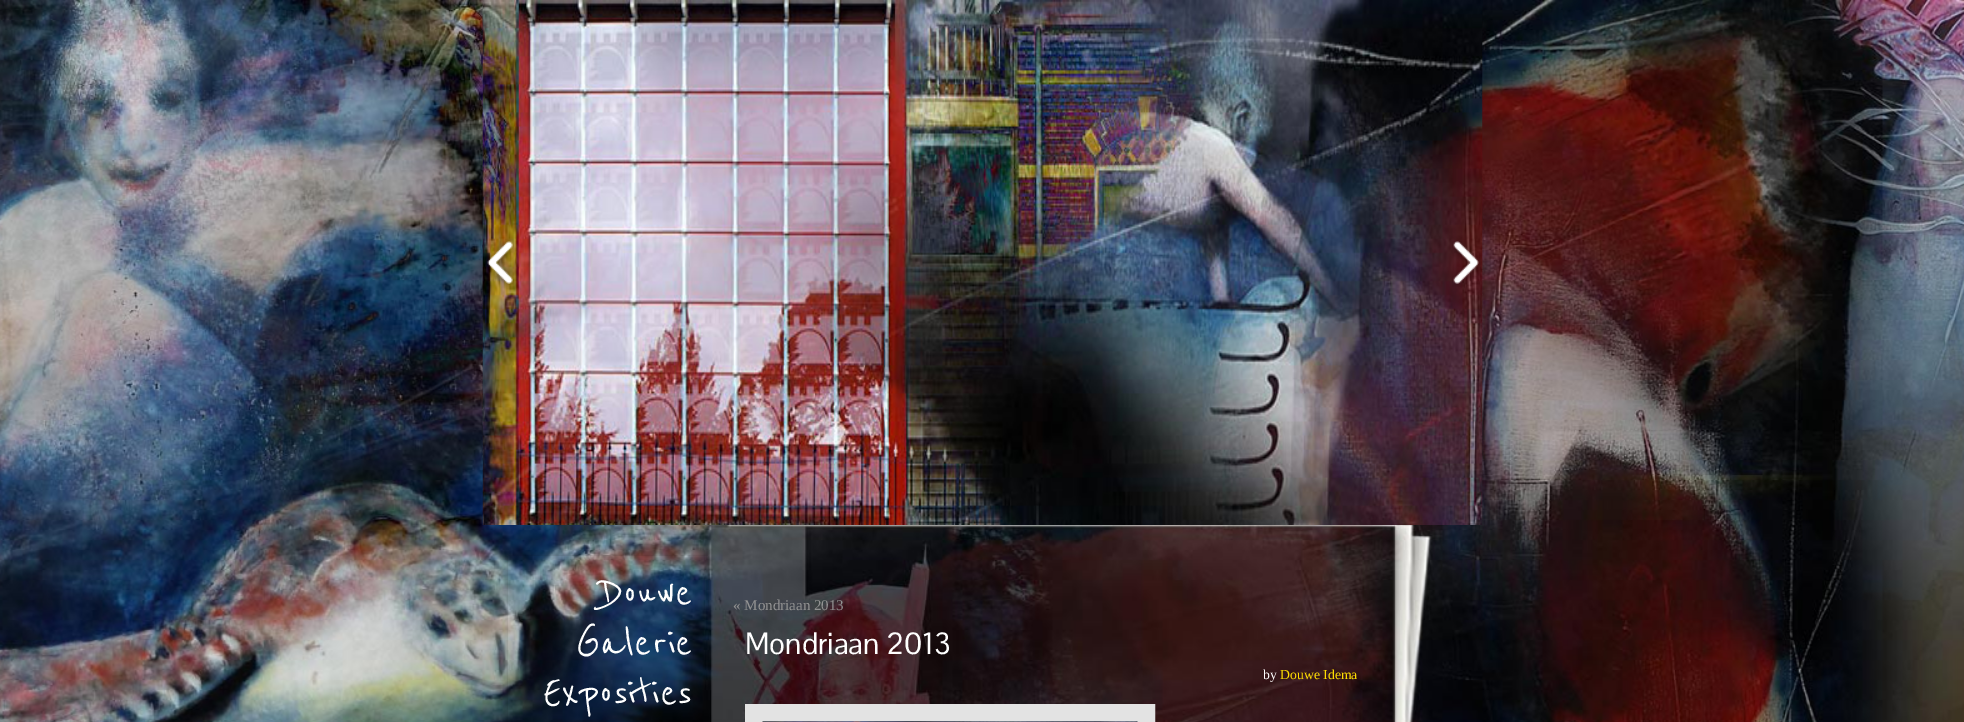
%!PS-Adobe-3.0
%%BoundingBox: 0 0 1964 722
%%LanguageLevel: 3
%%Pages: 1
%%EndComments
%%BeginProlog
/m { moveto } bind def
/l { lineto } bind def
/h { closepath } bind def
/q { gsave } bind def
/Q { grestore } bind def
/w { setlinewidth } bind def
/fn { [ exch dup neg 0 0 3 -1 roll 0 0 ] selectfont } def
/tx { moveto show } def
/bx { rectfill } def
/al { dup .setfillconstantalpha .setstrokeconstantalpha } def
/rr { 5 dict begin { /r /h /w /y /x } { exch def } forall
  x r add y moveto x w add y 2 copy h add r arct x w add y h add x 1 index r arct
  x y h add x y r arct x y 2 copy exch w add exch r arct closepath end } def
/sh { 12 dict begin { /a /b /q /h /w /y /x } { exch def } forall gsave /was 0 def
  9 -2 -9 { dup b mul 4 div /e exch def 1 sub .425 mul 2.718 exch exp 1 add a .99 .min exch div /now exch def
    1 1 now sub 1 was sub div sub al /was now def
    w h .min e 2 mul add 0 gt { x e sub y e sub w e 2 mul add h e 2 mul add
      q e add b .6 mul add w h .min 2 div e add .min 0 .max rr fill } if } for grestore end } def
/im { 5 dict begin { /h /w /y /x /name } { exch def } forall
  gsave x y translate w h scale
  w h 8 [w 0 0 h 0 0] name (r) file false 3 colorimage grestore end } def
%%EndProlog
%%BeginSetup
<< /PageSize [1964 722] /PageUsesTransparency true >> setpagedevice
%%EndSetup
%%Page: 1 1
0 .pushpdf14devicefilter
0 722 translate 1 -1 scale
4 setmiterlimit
1 setgray
0 0 1964 722 bx
(image0.raw) 0 0 1964 722 im
(image1.raw) 482 0 1001 525 im
(image2.raw) 482 1 1001 524 im
(image3.raw) 487 239 29 50 im
(image4.raw) 1452 241 29 46 im
q
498 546 m 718 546 l 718 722 l 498 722 l h 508 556 m 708 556 l 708 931 l 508 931 l h eoclip newpath
0 setgray
508 556 200 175 0 3 0.15 sh
Q
/ReenieBeanie-Medium 50 fn
(Douwe) 601 606 tx
(Galerie) 576 656 tx
(Exposities) 543 706 tx
/LiberationSerif-Regular 15 fn
0.573 setgray
(« Mondriaan 2013) 733 610 tx
/PontanoSans-Regular 30 fn
1 setgray
(Mondriaan 2013) 745 654 tx
/LiberationSerif-Regular 13.75 fn
(by) 1263 679 tx
1 0.871 0 setrgbcolor
(Douwe Idema) 1280 679 tx
0.89 setgray
18 w
754 713 392 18 rectstroke
(image5.raw) 762 721 376 1 im
.poppdf14devicefilter showpage
%%EOF
